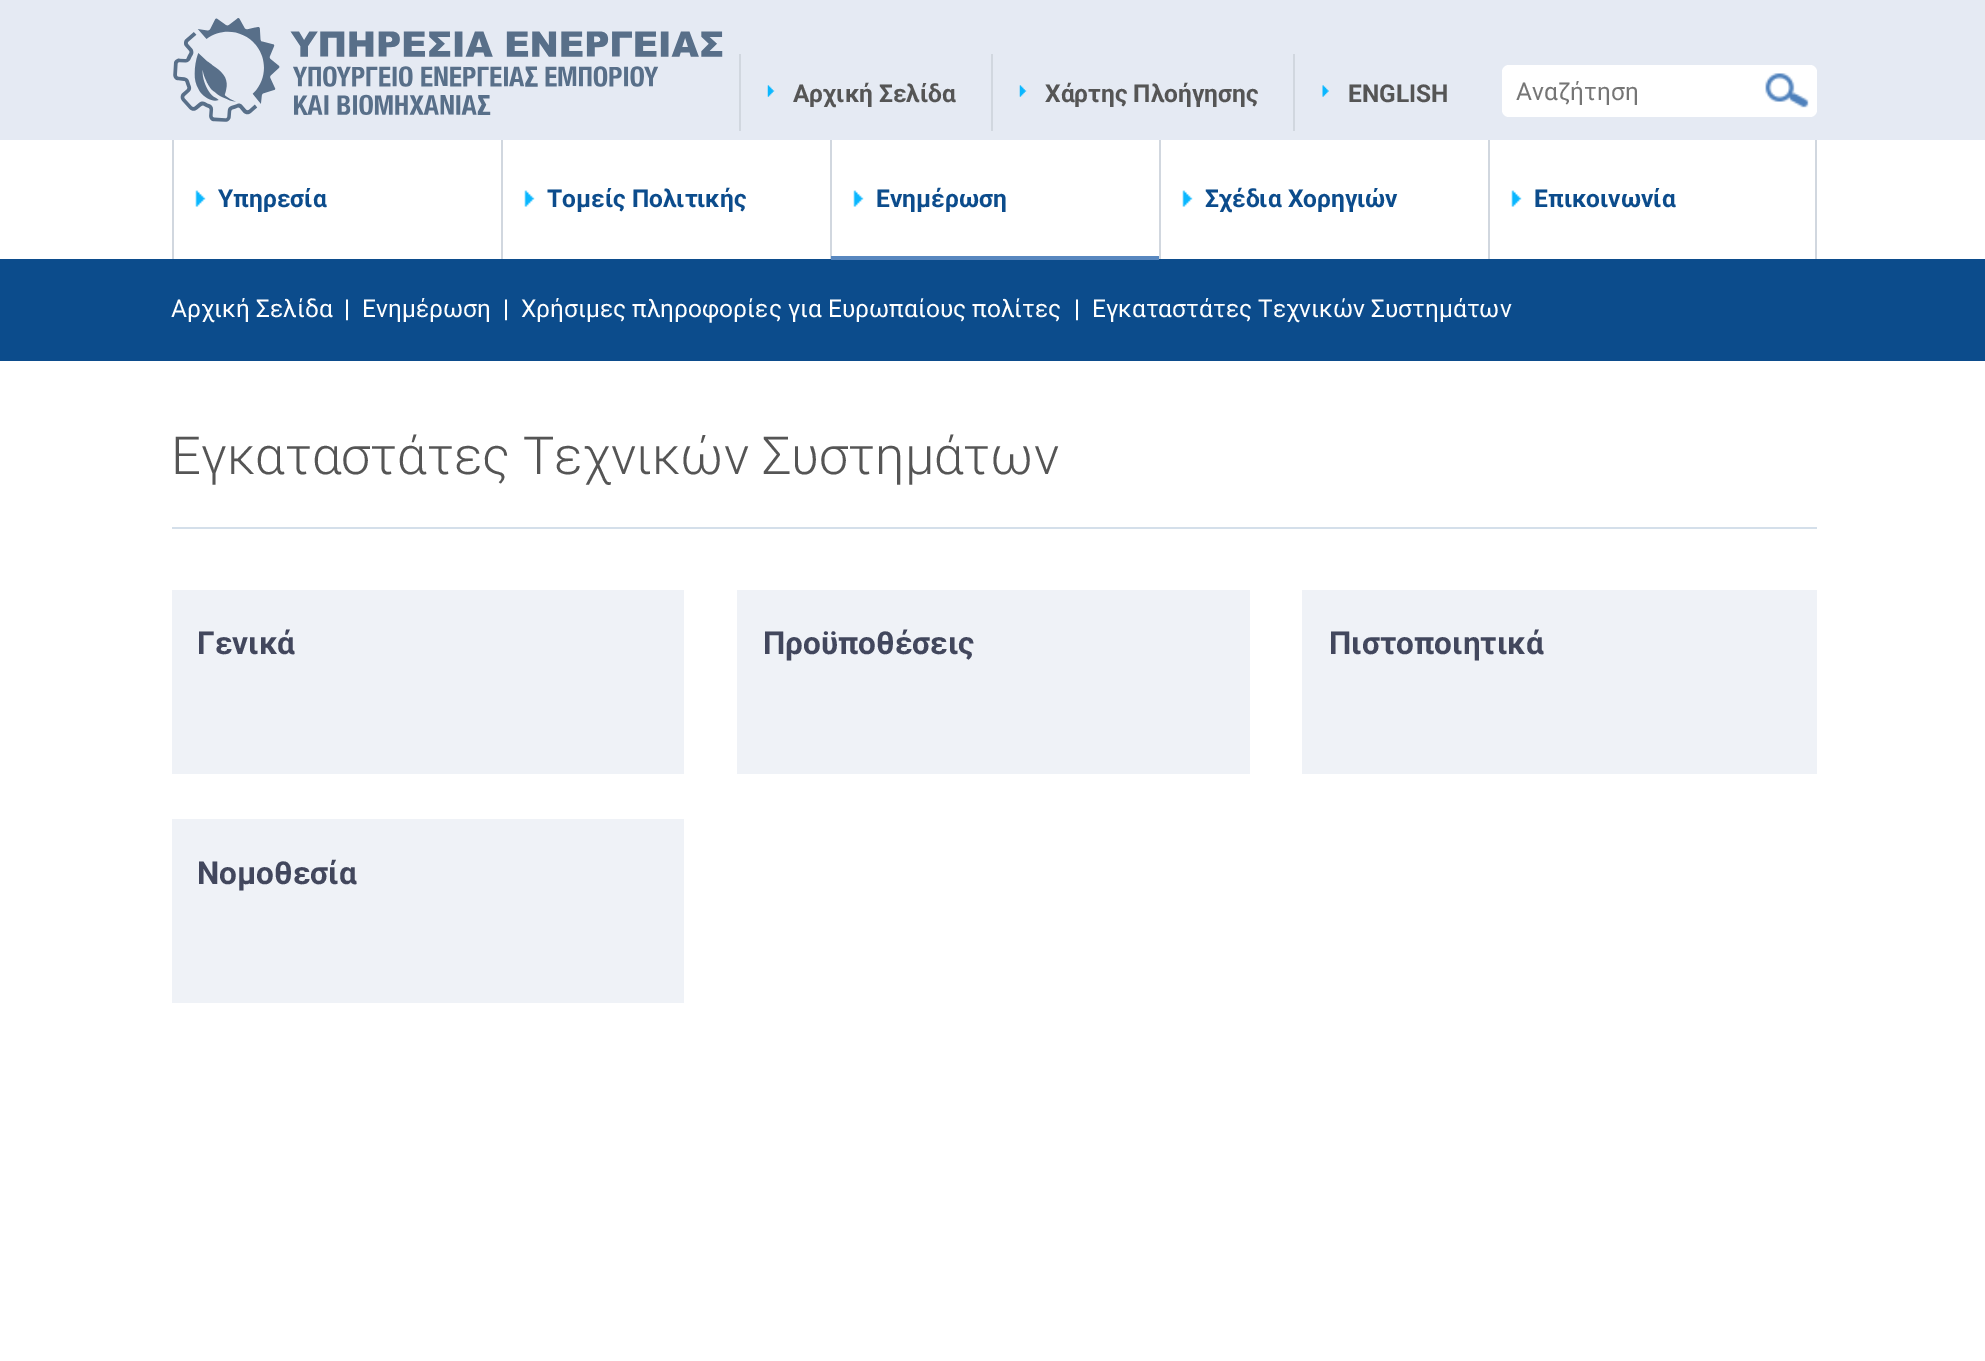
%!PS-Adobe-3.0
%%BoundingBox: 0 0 1985 1361
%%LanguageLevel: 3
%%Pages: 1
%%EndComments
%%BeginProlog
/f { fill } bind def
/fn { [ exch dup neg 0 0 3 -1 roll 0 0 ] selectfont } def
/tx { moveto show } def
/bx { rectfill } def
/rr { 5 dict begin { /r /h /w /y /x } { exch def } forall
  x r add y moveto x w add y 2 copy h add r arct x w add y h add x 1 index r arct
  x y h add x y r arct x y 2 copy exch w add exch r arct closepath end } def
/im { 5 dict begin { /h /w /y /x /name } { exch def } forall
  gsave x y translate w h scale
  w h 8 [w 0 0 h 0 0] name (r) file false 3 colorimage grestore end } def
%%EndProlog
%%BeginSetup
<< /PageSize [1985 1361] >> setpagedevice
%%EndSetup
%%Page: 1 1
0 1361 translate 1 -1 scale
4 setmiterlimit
1 setgray
0 0 1985 1361 bx
0.898 0.918 0.953 setrgbcolor
0 0 1985 140 bx
(image0.raw) 173 18 550 104 im
0.82 0.843 0.875 setrgbcolor
739 54 2 77 bx
(image1.raw) 767 85 8 12 im
/Roboto-Bold 24.5 fn
0.333 setgray
(Αρχική Σελίδα) 793 102 tx
0.82 0.843 0.875 setrgbcolor
991 54 2 77 bx
(image1.raw) 1019 85 8 12 im
0.333 setgray
(Χάρτης Πλοήγησης) 1045 102 tx
0.82 0.843 0.875 setrgbcolor
1293 54 2 77 bx
(image2.raw) 1322 85 7 12 im
0.333 setgray
(ENGLISH) 1348 102 tx
1 setgray
1502 65 315 52 7 rr f
/Roboto-Regular 24.5 fn
0.459 setgray
(Αναζήτηση) 1516 100 tx
(image3.raw) 1765 73 44 35 im
0.82 0.843 0.875 setrgbcolor
172 140 2 119 bx
(image4.raw) 195 190 11 17 im
/Roboto-Bold 24.5 fn
0.047 0.298 0.549 setrgbcolor
(Υπηρεσία) 218 207 tx
0.82 0.843 0.875 setrgbcolor
501 140 2 119 bx
(image4.raw) 524 190 11 17 im
0.047 0.298 0.549 setrgbcolor
(Τομείς Πολιτικής) 547 207 tx
0.82 0.843 0.875 setrgbcolor
830 140 2 119 bx
(image4.raw) 853 190 11 17 im
0.047 0.298 0.549 setrgbcolor
(Ενημέρωση) 876 207 tx
0 259 1985 102 bx
0.345 0.529 0.749 setrgbcolor
831 256 328 4 bx
0.82 0.843 0.875 setrgbcolor
1159 140 2 119 bx
(image4.raw) 1182 190 11 17 im
0.047 0.298 0.549 setrgbcolor
(Σχέδια Χορηγιών) 1205 207 tx
0.82 0.843 0.875 setrgbcolor
1815 140 2 119 bx
1488 140 2 119 bx
(image5.raw) 1511 190 11 17 im
0.047 0.298 0.549 setrgbcolor
(Επικοινωνία) 1534 207 tx
/Roboto-Regular 24.5 fn
1 setgray
(Αρχική Σελίδα) 171 317 tx
(|) 344 317 tx
(Ενημέρωση) 362 317 tx
(|) 503 317 tx
(Χρήσιμες πληροφορίες για Ευρωπαίους πολίτες) 521 317 tx
(|) 1074 317 tx
(Εγκαταστάτες Τεχνικών Συστημάτων) 1092 317 tx
0.831 0.875 0.918 setrgbcolor
172 527 1645 2 bx
/Roboto-Light 52.5 fn
0.333 setgray
(Εγκαταστάτες Τεχνικών Συστημάτων) 171 474 tx
0.937 0.949 0.969 setrgbcolor
172 590 1645 184 bx
/Roboto-Bold 31.5 fn
0.259 0.278 0.365 setrgbcolor
(Γενικά) 197 654 tx
1 setgray
684 590 53 184 bx
0.259 0.278 0.365 setrgbcolor
(Προϋποθέσεις) 763 654 tx
1 setgray
1250 590 52 184 bx
0.259 0.278 0.365 setrgbcolor
(Πιστοποιητικά) 1329 654 tx
0.937 0.949 0.969 setrgbcolor
172 819 512 184 bx
0.259 0.278 0.365 setrgbcolor
(Νομοθεσία) 197 884 tx
showpage
%%EOF
